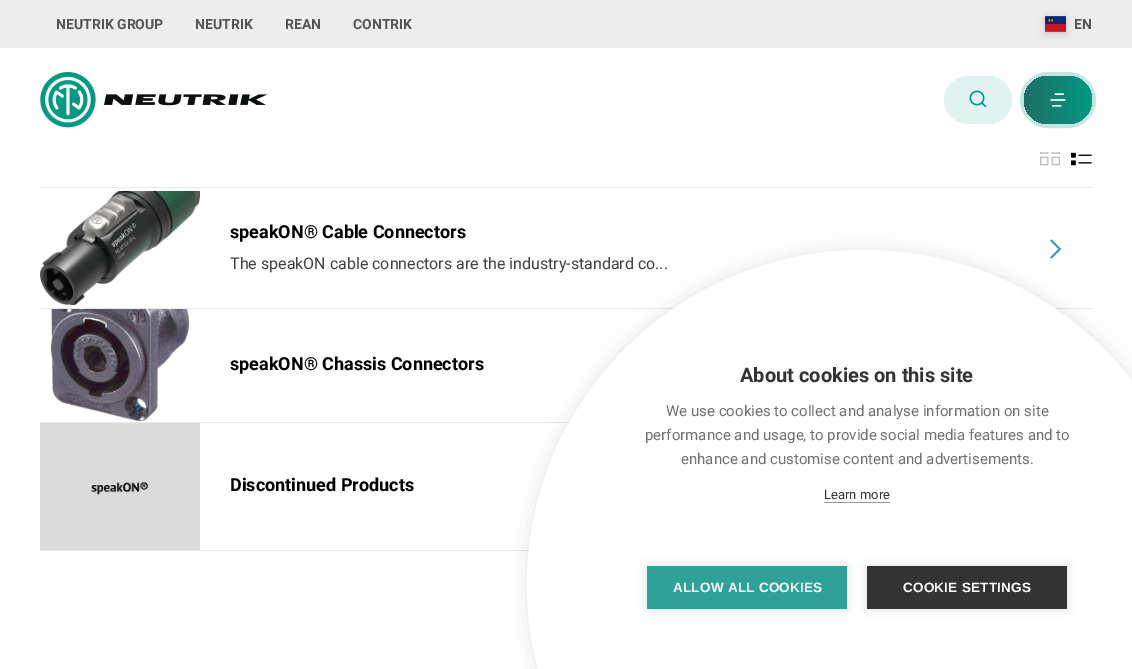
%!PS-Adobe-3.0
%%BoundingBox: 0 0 1132 669
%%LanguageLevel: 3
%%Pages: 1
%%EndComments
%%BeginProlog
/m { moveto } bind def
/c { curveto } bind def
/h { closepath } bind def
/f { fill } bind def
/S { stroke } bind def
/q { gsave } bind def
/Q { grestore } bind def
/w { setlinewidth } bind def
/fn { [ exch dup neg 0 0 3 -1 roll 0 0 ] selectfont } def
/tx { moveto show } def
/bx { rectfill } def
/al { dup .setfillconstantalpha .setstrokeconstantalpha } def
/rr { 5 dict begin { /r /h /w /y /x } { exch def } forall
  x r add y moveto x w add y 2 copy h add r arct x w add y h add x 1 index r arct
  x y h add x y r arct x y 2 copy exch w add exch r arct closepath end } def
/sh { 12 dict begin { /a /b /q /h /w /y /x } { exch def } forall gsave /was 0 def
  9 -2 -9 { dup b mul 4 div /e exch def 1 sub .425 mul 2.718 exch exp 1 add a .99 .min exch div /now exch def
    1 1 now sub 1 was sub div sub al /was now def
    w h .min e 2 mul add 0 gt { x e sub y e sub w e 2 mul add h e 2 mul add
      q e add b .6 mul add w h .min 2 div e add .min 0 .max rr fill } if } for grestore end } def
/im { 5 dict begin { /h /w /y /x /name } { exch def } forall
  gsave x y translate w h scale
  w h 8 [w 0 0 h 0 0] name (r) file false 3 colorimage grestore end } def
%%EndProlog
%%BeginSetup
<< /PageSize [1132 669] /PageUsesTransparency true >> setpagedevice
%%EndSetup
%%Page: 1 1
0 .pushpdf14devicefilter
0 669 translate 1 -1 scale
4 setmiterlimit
1 setgray
0 0 1132 669 bx
0.929 setgray
0 0 1132 48 bx
/Roboto-Bold 14 fn
0.333 setgray
(NEUTRIK GROUP) 56 29 tx
(NEUTRIK) 195 29 tx
(REAN) 285 29 tx
(CONTRIK) 353 29 tx
0 setgray
1045 18 21 16 0 4 0.16 sh
(image0.raw) 1045 16 21 16 im
0.333 setgray
(EN) 1074 29 tx
(image1.raw) 40 72 228 56 im
0.878 0.953 0.941 setrgbcolor
944 76 68 48 24 rr f
(image2.raw) 969 90 18 18 im
0.761 0.906 0.882 setrgbcolor
4 w
1022 74 72 52 26 rr S
q 1024 76 68 48 24 rr clip newpath
<< /ShadingType 2 /ColorSpace /DeviceRGB /Coords [1092 100 1024 100] /Extend [true true] /Function << /FunctionType 2 /Domain [0 1] /C0 [0 0.6 0.51] /C1 [0.125 0.431 0.404] /N 1 >> >> shfill Q
(image3.raw) 1050 93 16 14 im
(image4.raw) 1040 152 20 14 im
(image5.raw) 1071 152 21 14 im
0.914 setgray
40 187 1052 1 bx
(image6.raw) 40 191 160 114 im
/Roboto-Bold 18 fn
0 setgray
(speakON® Cable Connectors) 230 238 tx
/Roboto-Regular 16 fn
0.259 setgray
(The speakON cable connectors are the industry-standard co...) 230 269 tx
(image7.raw) 1050 239 12 20 im
0.914 setgray
40 308 1052 1 bx
(image8.raw) 50 309 140 113 im
/Roboto-Bold 18 fn
0 setgray
(speakON® Chassis Connectors) 230 370 tx
0.914 setgray
40 422 530 1 bx
40 550 489 1 bx
(image9.raw) 40 423 160 127 im
0 setgray
(Discontinued Products) 230 491 tx
527 250 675 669 334.5 10 0.1 sh
1 setgray
864.5 250 m 1051 250 1202 400 1202 584.5 c 1202 769 1051 919 864.5 919 c 678 919 527 769 527 584.5 c 527 400 678 250 864.5 250 c h f
/Roboto-Bold 20 fn
0.2 setgray
(About cookies on this site) 740 382 tx
/Roboto-Regular 15 fn
0.439 setgray
(We use cookies to collect and analyse information on site) 666 416 tx
(performance and usage, to provide social media features and to) 645 440 tx
(enhance and customise content and advertisements.) 681 464 tx
/Roboto-Regular 13 fn
0.2 setgray
(Learn more) 824 499 tx
0.6 setgray
824 502 66 1 bx
0 setgray
647 566 200 43 0 5 0.12 sh
0.18 0.631 0.596 setrgbcolor
647 566 200 43 bx
/LiberationSans-Bold 13.5 fn
1 setgray
673 592 m 0.25 0 (ALLOW ALL COOKIES) ashow
0 setgray
867 566 200 43 0 5 0.12 sh
0.2 setgray
867 566 200 43 bx
1 setgray
903 592 m 0.25 0 (COOKIE SETTINGS) ashow
.poppdf14devicefilter showpage
%%EOF
